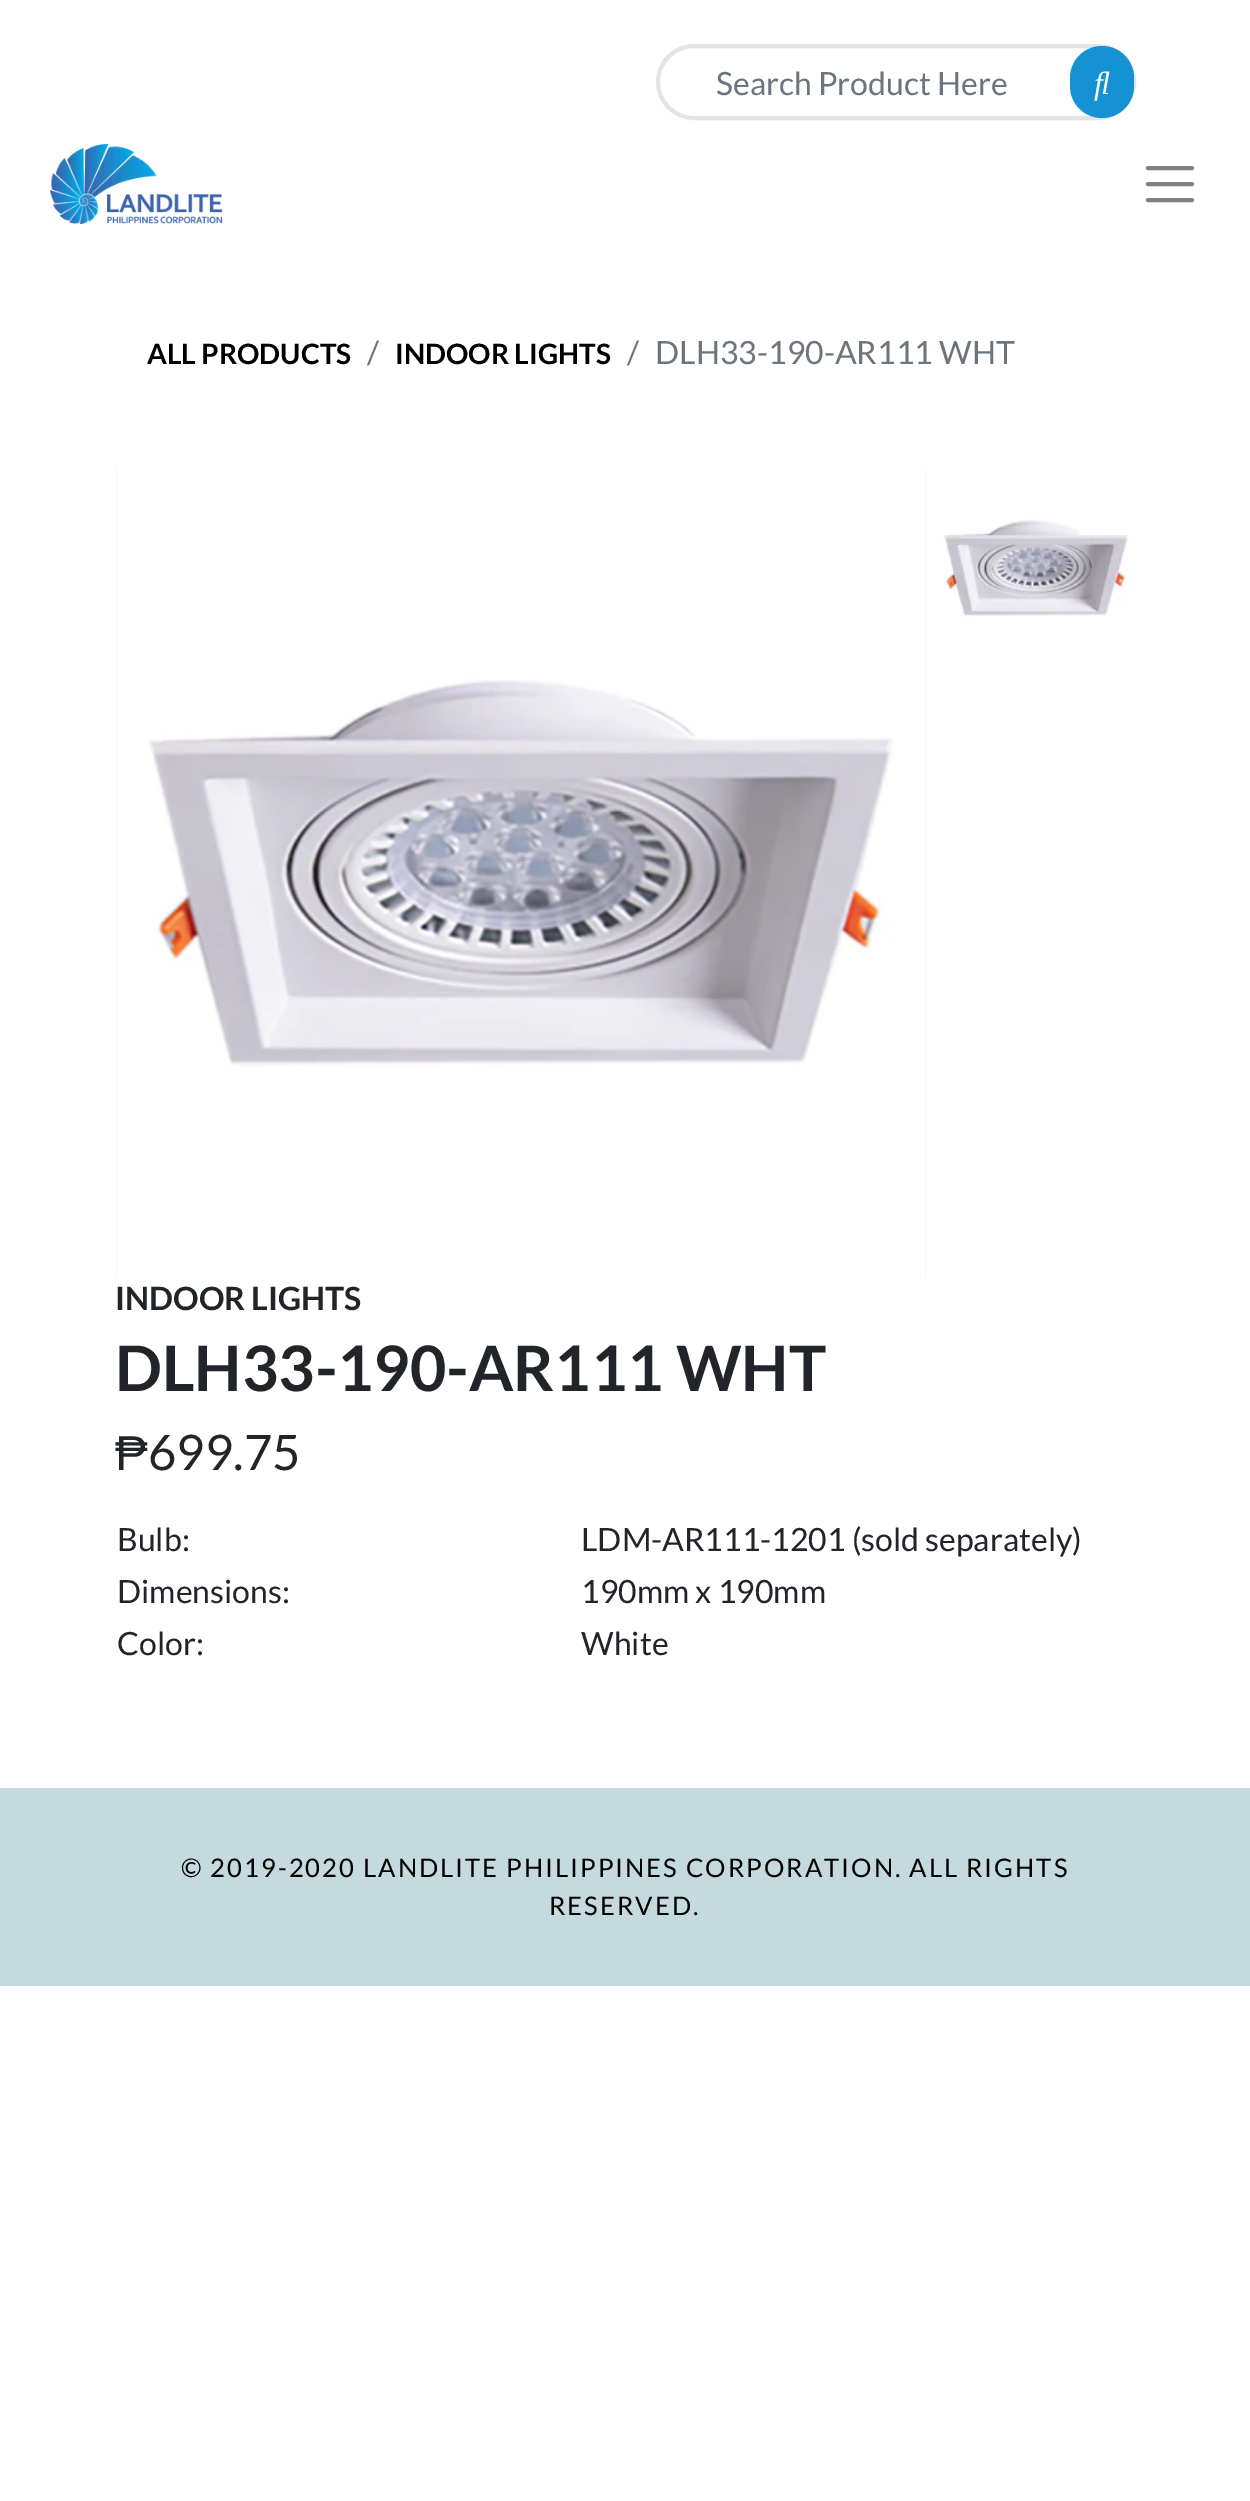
%!PS-Adobe-3.0
%%BoundingBox: 0 0 1250 2501
%%LanguageLevel: 3
%%Pages: 1
%%EndComments
%%BeginProlog
/m { moveto } bind def
/l { lineto } bind def
/f { fill } bind def
/S { stroke } bind def
/w { setlinewidth } bind def
/fn { [ exch dup neg 0 0 3 -1 roll 0 0 ] selectfont } def
/tx { moveto show } def
/bx { rectfill } def
/rr { 5 dict begin { /r /h /w /y /x } { exch def } forall
  x r add y moveto x w add y 2 copy h add r arct x w add y h add x 1 index r arct
  x y h add x y r arct x y 2 copy exch w add exch r arct closepath end } def
/im { 5 dict begin { /h /w /y /x /name } { exch def } forall
  gsave x y translate w h scale
  w h 8 [w 0 0 h 0 0] name (r) file false 3 colorimage grestore end } def
%%EndProlog
%%BeginSetup
<< /PageSize [1250 2501] >> setpagedevice
%%EndSetup
%%Page: 1 1
0 2501 translate 1 -1 scale
4 setmiterlimit
1 setgray
0 0 1250 2501 bx
0.894 setgray
4 w
658 46 476 72 36 rr S
/Lato-Regular 32 fn
0.424 0.459 0.49 setrgbcolor
(Search Product Here) 716 95 tx
0.082 0.573 0.831 setrgbcolor
1070 46 64 72 32 rr f
(image0.raw) 1094 71 16 30 im
(image1.raw) 50 144 172 80 im
0.502 setgray
1 setlinecap
1148 168 m 1192 168 l 1148 184 m 1192 184 l 1148 200 m 1192 200 l S
/Lato-Bold 28 fn
0 setgray
(ALL PRODUCTS) 147 364 tx
/Lato-Regular 32 fn
0.424 0.459 0.49 setrgbcolor
(/) 367 364 tx
/Lato-Bold 28 fn
0 setgray
(INDOOR LIGHTS) 395 364 tx
/Lato-Regular 32 fn
0.424 0.459 0.49 setrgbcolor
(/) 627 364 tx
(DLH33-190-AR111 WHT) 655 364 tx
0.898 setgray
116 468 810 810 bx
(image2.raw) 116 468 810 810 im
(image3.raw) 936 468 200 200 im
/Lato-Bold 32 fn
0.129 0.145 0.161 setrgbcolor
(INDOOR LIGHTS) 115 1310 tx
/Lato-Bold 62.75 fn
(DLH33-190-AR111 WHT) 115 1391 tx
/LiberationSans-Regular 49 fn
(₱) 115 1470 tx
/Lato-Regular 49 fn
(699.75) 148 1470 tx
/Lato-Regular 32 fn
(Bulb:) 117 1551 tx
(LDM-AR111-1201 \(sold separately\)) 581 1551 tx
(Dimensions:) 117 1603 tx
(190mm x 190mm) 581 1603 tx
(Color:) 117 1655 tx
(White) 581 1655 tx
0.773 0.855 0.875 setrgbcolor
0 1788 1250 198 bx
/Lato-Regular 25.6 fn
0 setgray
181 1877 m 2 0 (© 2019-2020 LANDLITE PHILIPPINES CORPORATION. ALL RIGHTS) ashow
549 1915 m 2 0 (RESERVED.) ashow
showpage
%%EOF
